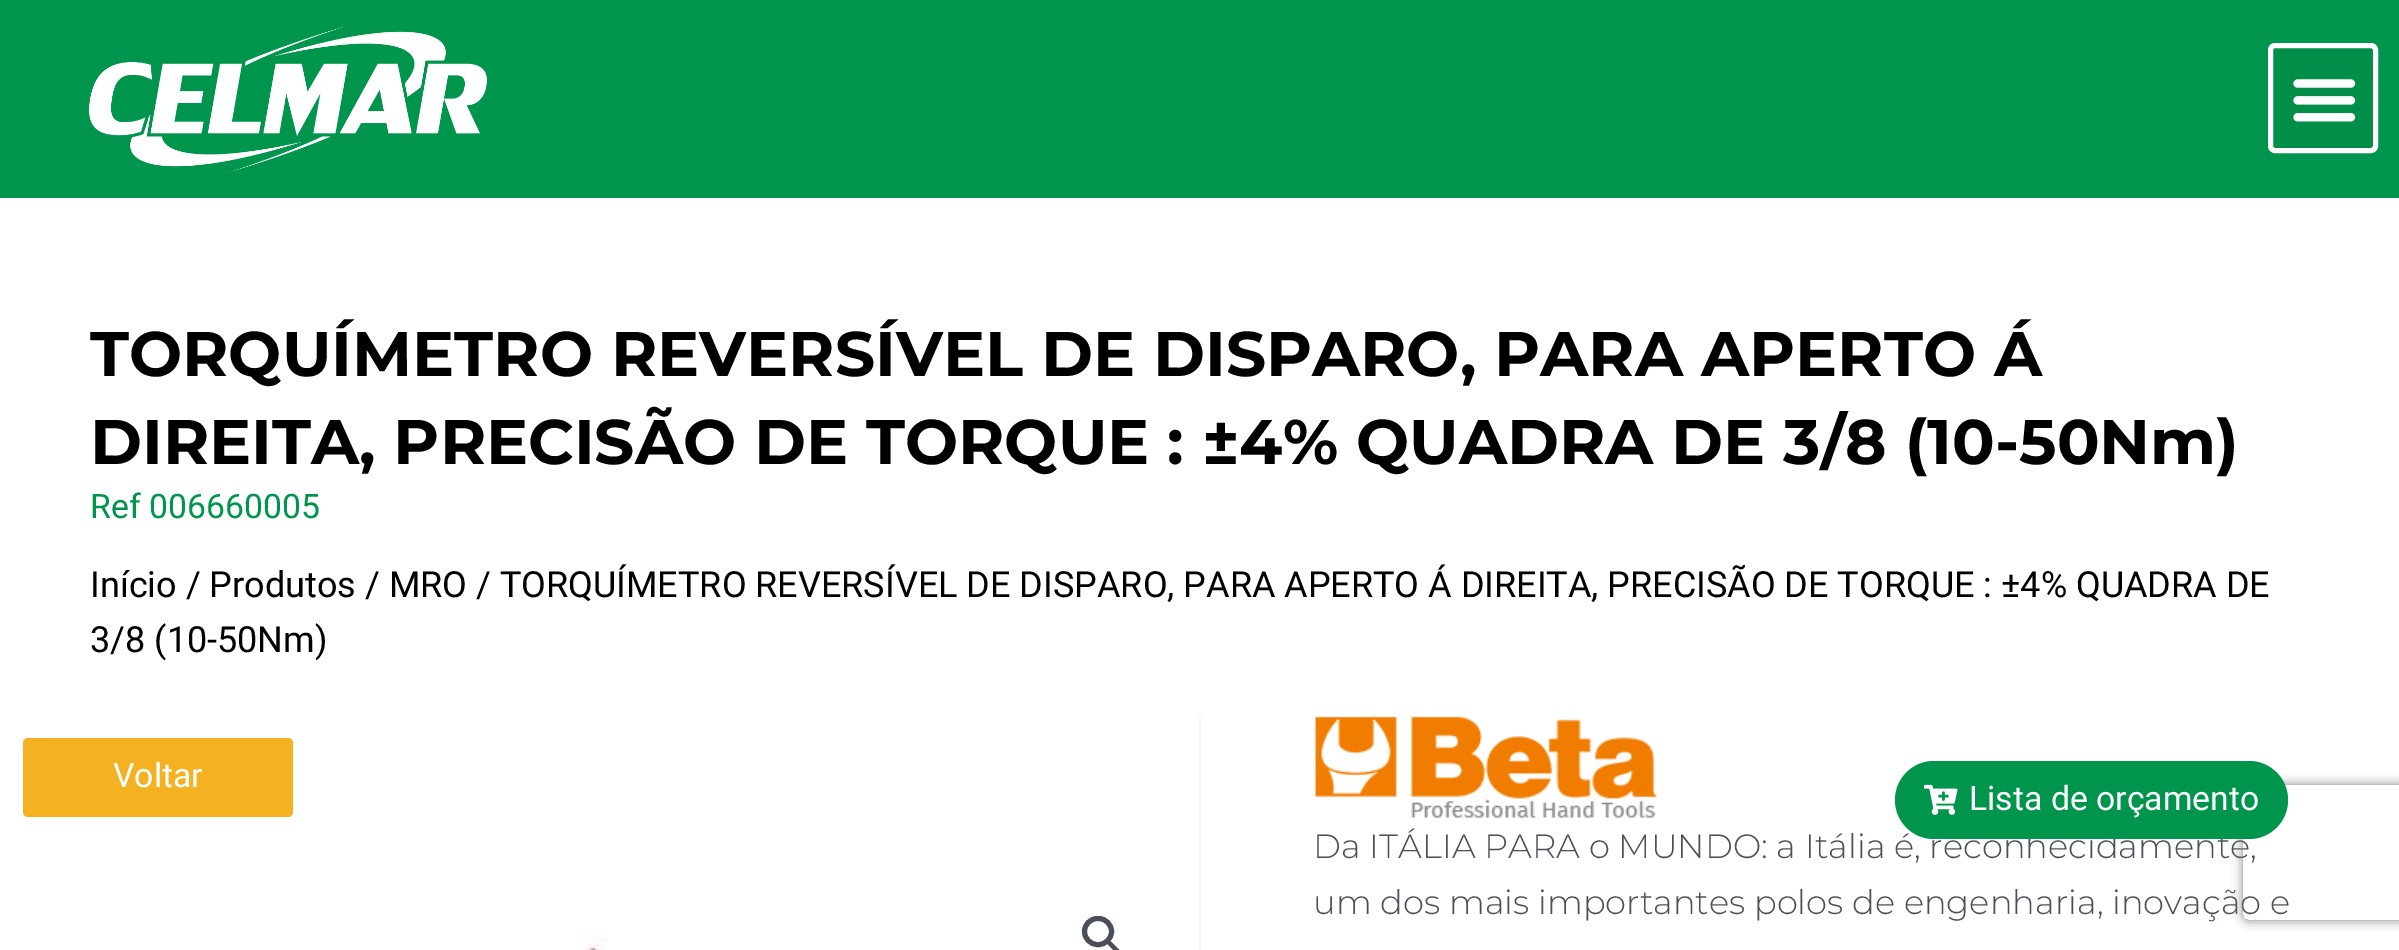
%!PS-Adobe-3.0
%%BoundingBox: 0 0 2399 950
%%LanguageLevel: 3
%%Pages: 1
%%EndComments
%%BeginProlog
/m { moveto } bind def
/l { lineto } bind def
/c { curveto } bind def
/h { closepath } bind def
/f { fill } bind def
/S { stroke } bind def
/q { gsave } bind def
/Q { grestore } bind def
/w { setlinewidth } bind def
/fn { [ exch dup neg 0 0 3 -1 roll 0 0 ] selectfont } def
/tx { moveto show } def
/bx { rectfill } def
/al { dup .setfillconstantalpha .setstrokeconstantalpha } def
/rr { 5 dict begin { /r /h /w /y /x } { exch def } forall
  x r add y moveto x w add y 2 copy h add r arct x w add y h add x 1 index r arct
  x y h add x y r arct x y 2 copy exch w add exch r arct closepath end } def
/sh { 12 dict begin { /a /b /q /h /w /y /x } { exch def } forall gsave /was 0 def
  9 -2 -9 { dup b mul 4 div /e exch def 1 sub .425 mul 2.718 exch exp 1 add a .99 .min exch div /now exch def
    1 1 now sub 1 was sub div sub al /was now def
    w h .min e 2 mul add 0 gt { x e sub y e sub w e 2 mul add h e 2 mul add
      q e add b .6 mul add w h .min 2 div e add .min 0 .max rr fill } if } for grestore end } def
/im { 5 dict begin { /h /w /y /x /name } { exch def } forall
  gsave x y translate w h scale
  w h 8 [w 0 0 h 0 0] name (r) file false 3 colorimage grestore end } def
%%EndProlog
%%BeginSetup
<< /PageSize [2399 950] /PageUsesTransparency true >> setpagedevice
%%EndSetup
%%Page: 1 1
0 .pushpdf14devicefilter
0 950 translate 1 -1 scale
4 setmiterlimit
1 setgray
0 0 2399 950 bx
0 0.584 0.298 setrgbcolor
0 0 2399 198 bx
(image0.raw) 88 26 400 146 im
0 0.557 0.282 setrgbcolor
2270.5 45.5 105 105 4.5 rr q f Q
1 setgray
5 w
S
(image1.raw) 2293 79 63 43 im
/Montserrat-Bold 63 fn
0 setgray
(TORQUÍMETRO REVERSÍVEL DE DISPARO, PARA APERTO Á) 90 376 tx
(DIREITA, PRECISÃO DE TORQUE : ±4% QUADRA DE 3/8 \(10-50Nm\)) 90 464 tx
/Roboto-Regular 33.75 fn
0 0.584 0.298 setrgbcolor
(Ref 006660005) 90 518 tx
/Roboto-Regular 36 fn
0 setgray
(Início / Produtos / MRO / TORQUÍMETRO REVERSÍVEL DE DISPARO, PARA APERTO Á DIREITA, PRECISÃO DE TORQUE : ±4% QUADRA DE) 90 597 tx
(3/8 \(10-50Nm\)) 90 652 tx
0.961 setgray
1199 716 2 234 bx
0.957 0.698 0.137 setrgbcolor
23 738 270 79 5 rr f
/Roboto-Regular 33.75 fn
1 setgray
(Voltar) 113 787 tx
0.294 0.31 0.345 setrgbcolor
1084.5 918.5 27 26 13 rr S
1106.5 940 m 1107 939 1108.5 939 1109.5 940 c 1119 949.5 l 1120 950.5 1120 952 1119 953 c 1118 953.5 1116.5 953.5 1116 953 c 1106.5 943 l 1105.5 942.5 1105.5 941 1106.5 940 c h f
0.984 0.992 0.988 setrgbcolor
1176 933 1 1 bx
(image2.raw) 577 934 31 16 im
(image3.raw) 1315 716 343 102 im
/Montserrat-Light 33.75 fn
0.294 0.31 0.345 setrgbcolor
(Da ITÁLIA PARA o MUNDO: a Itália é, reconhecidamente,) 1313 858 tx
(um dos mais importantes polos de engenharia, inovação e) 1313 914 tx
q
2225 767 m 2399 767 l 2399 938 l 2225 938 l h 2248 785 m 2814 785 l 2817 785 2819 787 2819 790 c 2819 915 l 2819 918 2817 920 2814 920 c 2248 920 l 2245 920 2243 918 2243 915 c 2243 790 l 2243 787 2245 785 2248 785 c h eoclip newpath
0.502 setgray
2243 785 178 135 5 5.5 1 sh
Q
0 0.584 0.298 setrgbcolor
1895 761 393 78 39 rr f
(image4.raw) 1924 784 34 31 im
/Roboto-Regular 33.75 fn
1 setgray
(Lista de orçamento) 1969 810 tx
.poppdf14devicefilter showpage
%%EOF
